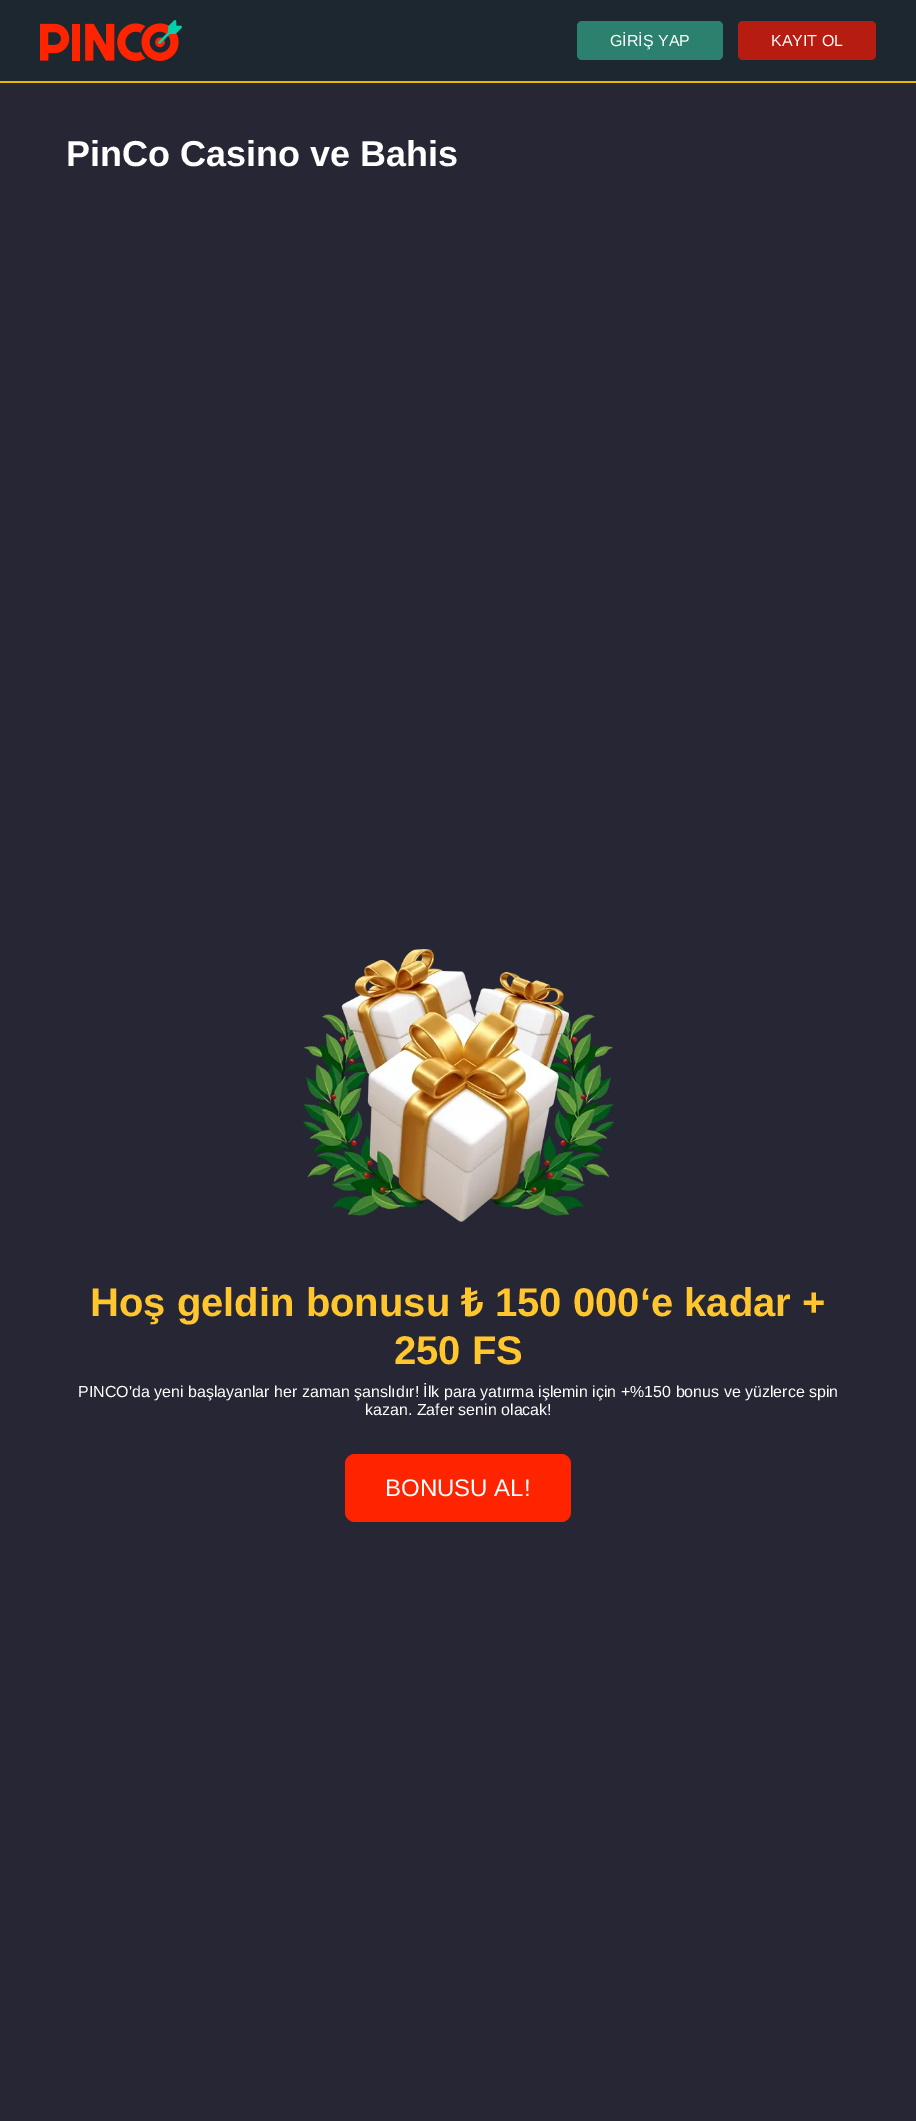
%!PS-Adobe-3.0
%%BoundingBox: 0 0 916 2121
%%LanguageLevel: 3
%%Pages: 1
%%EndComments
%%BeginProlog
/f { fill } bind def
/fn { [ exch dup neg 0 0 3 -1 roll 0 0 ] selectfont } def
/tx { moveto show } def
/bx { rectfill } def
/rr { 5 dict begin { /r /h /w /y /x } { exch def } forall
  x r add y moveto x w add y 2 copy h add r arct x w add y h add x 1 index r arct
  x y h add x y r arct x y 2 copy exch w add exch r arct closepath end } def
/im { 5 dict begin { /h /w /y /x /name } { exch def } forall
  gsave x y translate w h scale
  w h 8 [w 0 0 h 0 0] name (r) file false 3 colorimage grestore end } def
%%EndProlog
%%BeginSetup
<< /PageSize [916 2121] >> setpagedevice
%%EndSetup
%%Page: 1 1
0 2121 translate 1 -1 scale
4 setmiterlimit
0.149 0.149 0.204 setrgbcolor
0 0 916 2121 bx
0.114 0.153 0.188 setrgbcolor
0 0 916 81 bx
0.902 0.725 0 setrgbcolor
0 81 916 2 bx
(image0.raw) 40 20 142 41 im
0.173 0.506 0.431 setrgbcolor
577 21 146 39 5 rr f
/LiberationSans-Regular 16 fn
1 setgray
(GİRİŞ YAP) 610 46 tx
0.714 0.114 0.063 setrgbcolor
738 21 138 39 5 rr f
1 setgray
(KAYIT OL) 771 46 tx
/LiberationSans-Bold 36 fn
(PinCo Casino ve Bahis) 66 166 tx
(image1.raw) 302 949 312 273 im
/LiberationSans-Bold 40 fn
1 0.776 0.18 setrgbcolor
(Hoş geldin bonusu) 90 1316 tx
/NotoSans-Bold 40 fn
(₺) 461 1316 tx
/LiberationSans-Bold 40 fn
(150 000‘e kadar +) 495 1316 tx
(250 FS) 394 1364 tx
/LiberationSans-Regular 16 fn
1 setgray
(PINCO'da yeni başlayanlar her zaman şanslıdır! İlk para yatırma işlemin için +%150 bonus ve yüzlerce spin) 78 1397 tx
(kazan. Zafer senin olacak!) 365 1415 tx
1 0.141 0 setrgbcolor
345 1454 226 68 10 rr f
/LiberationSans-Regular 24 fn
1 setgray
(BONUSU AL!) 385 1496 tx
showpage
%%EOF
